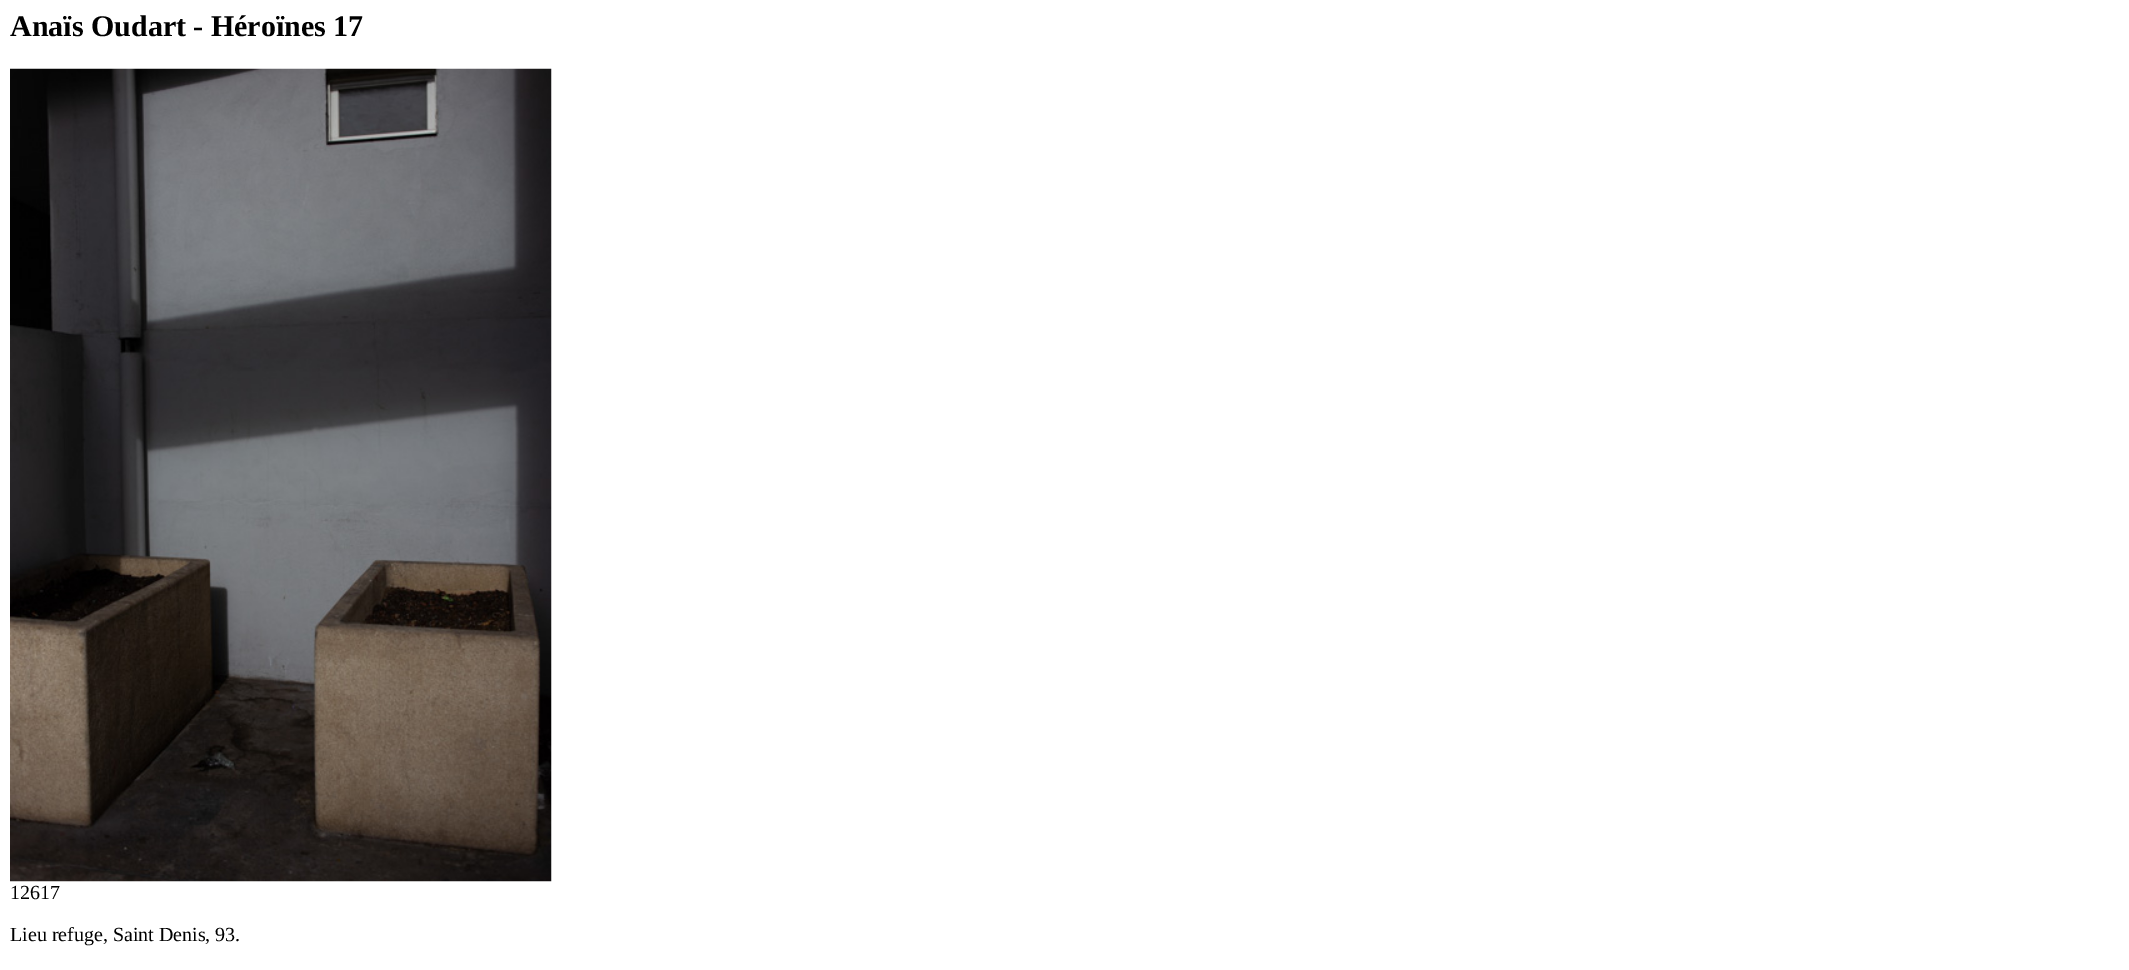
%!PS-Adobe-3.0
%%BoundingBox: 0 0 2129 970
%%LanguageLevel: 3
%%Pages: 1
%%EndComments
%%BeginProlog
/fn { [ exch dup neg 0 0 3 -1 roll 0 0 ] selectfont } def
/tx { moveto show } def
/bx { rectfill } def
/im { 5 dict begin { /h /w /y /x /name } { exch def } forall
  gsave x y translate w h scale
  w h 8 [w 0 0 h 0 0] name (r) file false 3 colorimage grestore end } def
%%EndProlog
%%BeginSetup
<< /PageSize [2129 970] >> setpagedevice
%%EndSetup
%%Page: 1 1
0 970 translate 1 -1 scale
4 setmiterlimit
1 setgray
0 0 2129 970 bx
/LiberationSerif-Bold 30 fn
0 setgray
(Anaïs Oudart - Héroïnes 17) 10 36 tx
(image0.raw) 10 68 542 814 im
/LiberationSerif-Regular 20 fn
(12617) 10 899 tx
(Lieu refuge, Saint Denis, 93.) 10 941 tx
showpage
%%EOF
